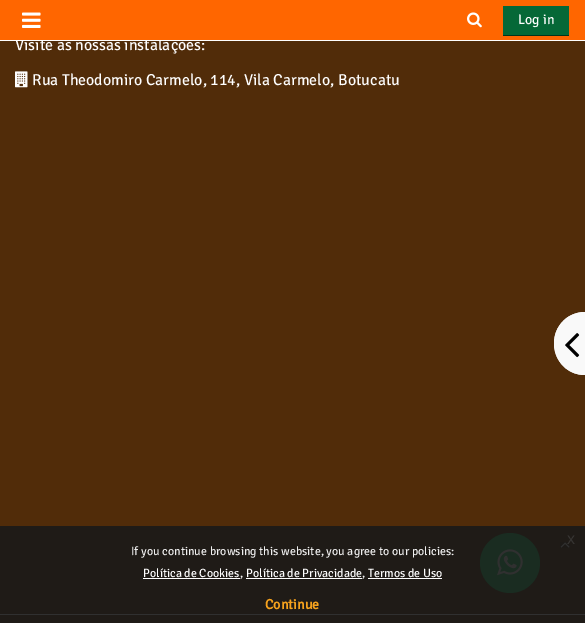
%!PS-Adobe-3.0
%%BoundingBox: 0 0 585 623
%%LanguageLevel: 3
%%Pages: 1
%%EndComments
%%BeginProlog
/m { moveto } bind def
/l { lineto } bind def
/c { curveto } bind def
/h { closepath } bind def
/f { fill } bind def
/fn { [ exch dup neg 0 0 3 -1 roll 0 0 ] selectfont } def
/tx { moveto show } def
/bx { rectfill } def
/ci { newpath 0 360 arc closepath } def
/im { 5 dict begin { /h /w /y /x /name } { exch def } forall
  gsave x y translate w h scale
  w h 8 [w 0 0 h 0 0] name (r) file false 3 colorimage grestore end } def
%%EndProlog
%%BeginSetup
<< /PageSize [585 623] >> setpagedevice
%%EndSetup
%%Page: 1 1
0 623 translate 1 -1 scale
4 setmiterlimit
0.318 0.173 0.035 setrgbcolor
0 0 585 623 bx
/SignikaNegative-Light 15.9 fn
1 setgray
(Visite as nossas instalações:) 15 50 tx
1 0.4 0 setrgbcolor
0 0 585 40 bx
1 setgray
0 40 585 1 bx
(image0.raw) 22 12 19 16 im
(image1.raw) 467 12 15 16 im
0.02 0.408 0.216 setrgbcolor
503 6 66 29 bx
0.012 0.204 0.11 setrgbcolor
503 35 66 1 bx
/SignikaNegative-Light 14 fn
1 setgray
(Log in) 518 24 tx
0.122 0.106 0.09 setrgbcolor
0 526 585 97 bx
(image2.raw) 15 71 13 17 im
/SignikaNegative-Light 15.9 fn
1 setgray
(Rua Theodomiro Carmelo, 114, Vila Carmelo, Botucatu) 32 85 tx
0.188 setgray
0 614 585 1 bx
0.976 setgray
585 312 m 585 375 l 568 375 554 361 554 344 c 554 343 l 554 326 568 312 585 312 c h f
585 312 m 585 375 l 554 375 543 334 568 317 c 573 314 579 312 585 312 c h 585 316 m 585 371 l 549 371 549 316 585 316 c h eofill
(image3.raw) 565 333 15 25 im
(image4.raw) 560 542 10 6 im
0.102 0.173 0.129 setrgbcolor
510 563 30 ci f
(image5.raw) 497 549 26 27 im
/LiberationSans-Regular 16 fn
0.216 0.208 0.2 setrgbcolor
(x) 567 544 tx
/SignikaNegative-Light 12 fn
0.937 setgray
(If you continue browsing this website, you agree to our policies:) 131 555 tx
1 setgray
(Política de Cookies) 143 577 tx
143 578 97 1 bx
0.937 setgray
(,) 240 577 tx
1 setgray
246 578 116 1 bx
(Política de Privacidade) 246 577 tx
0.937 setgray
(,) 362 577 tx
1 setgray
368 578 74 1 bx
(Termos de Uso) 368 577 tx
/SignikaNegative-Bold 14 fn
0.965 0.635 0.114 setrgbcolor
(Continue) 265 609 tx
showpage
%%EOF
